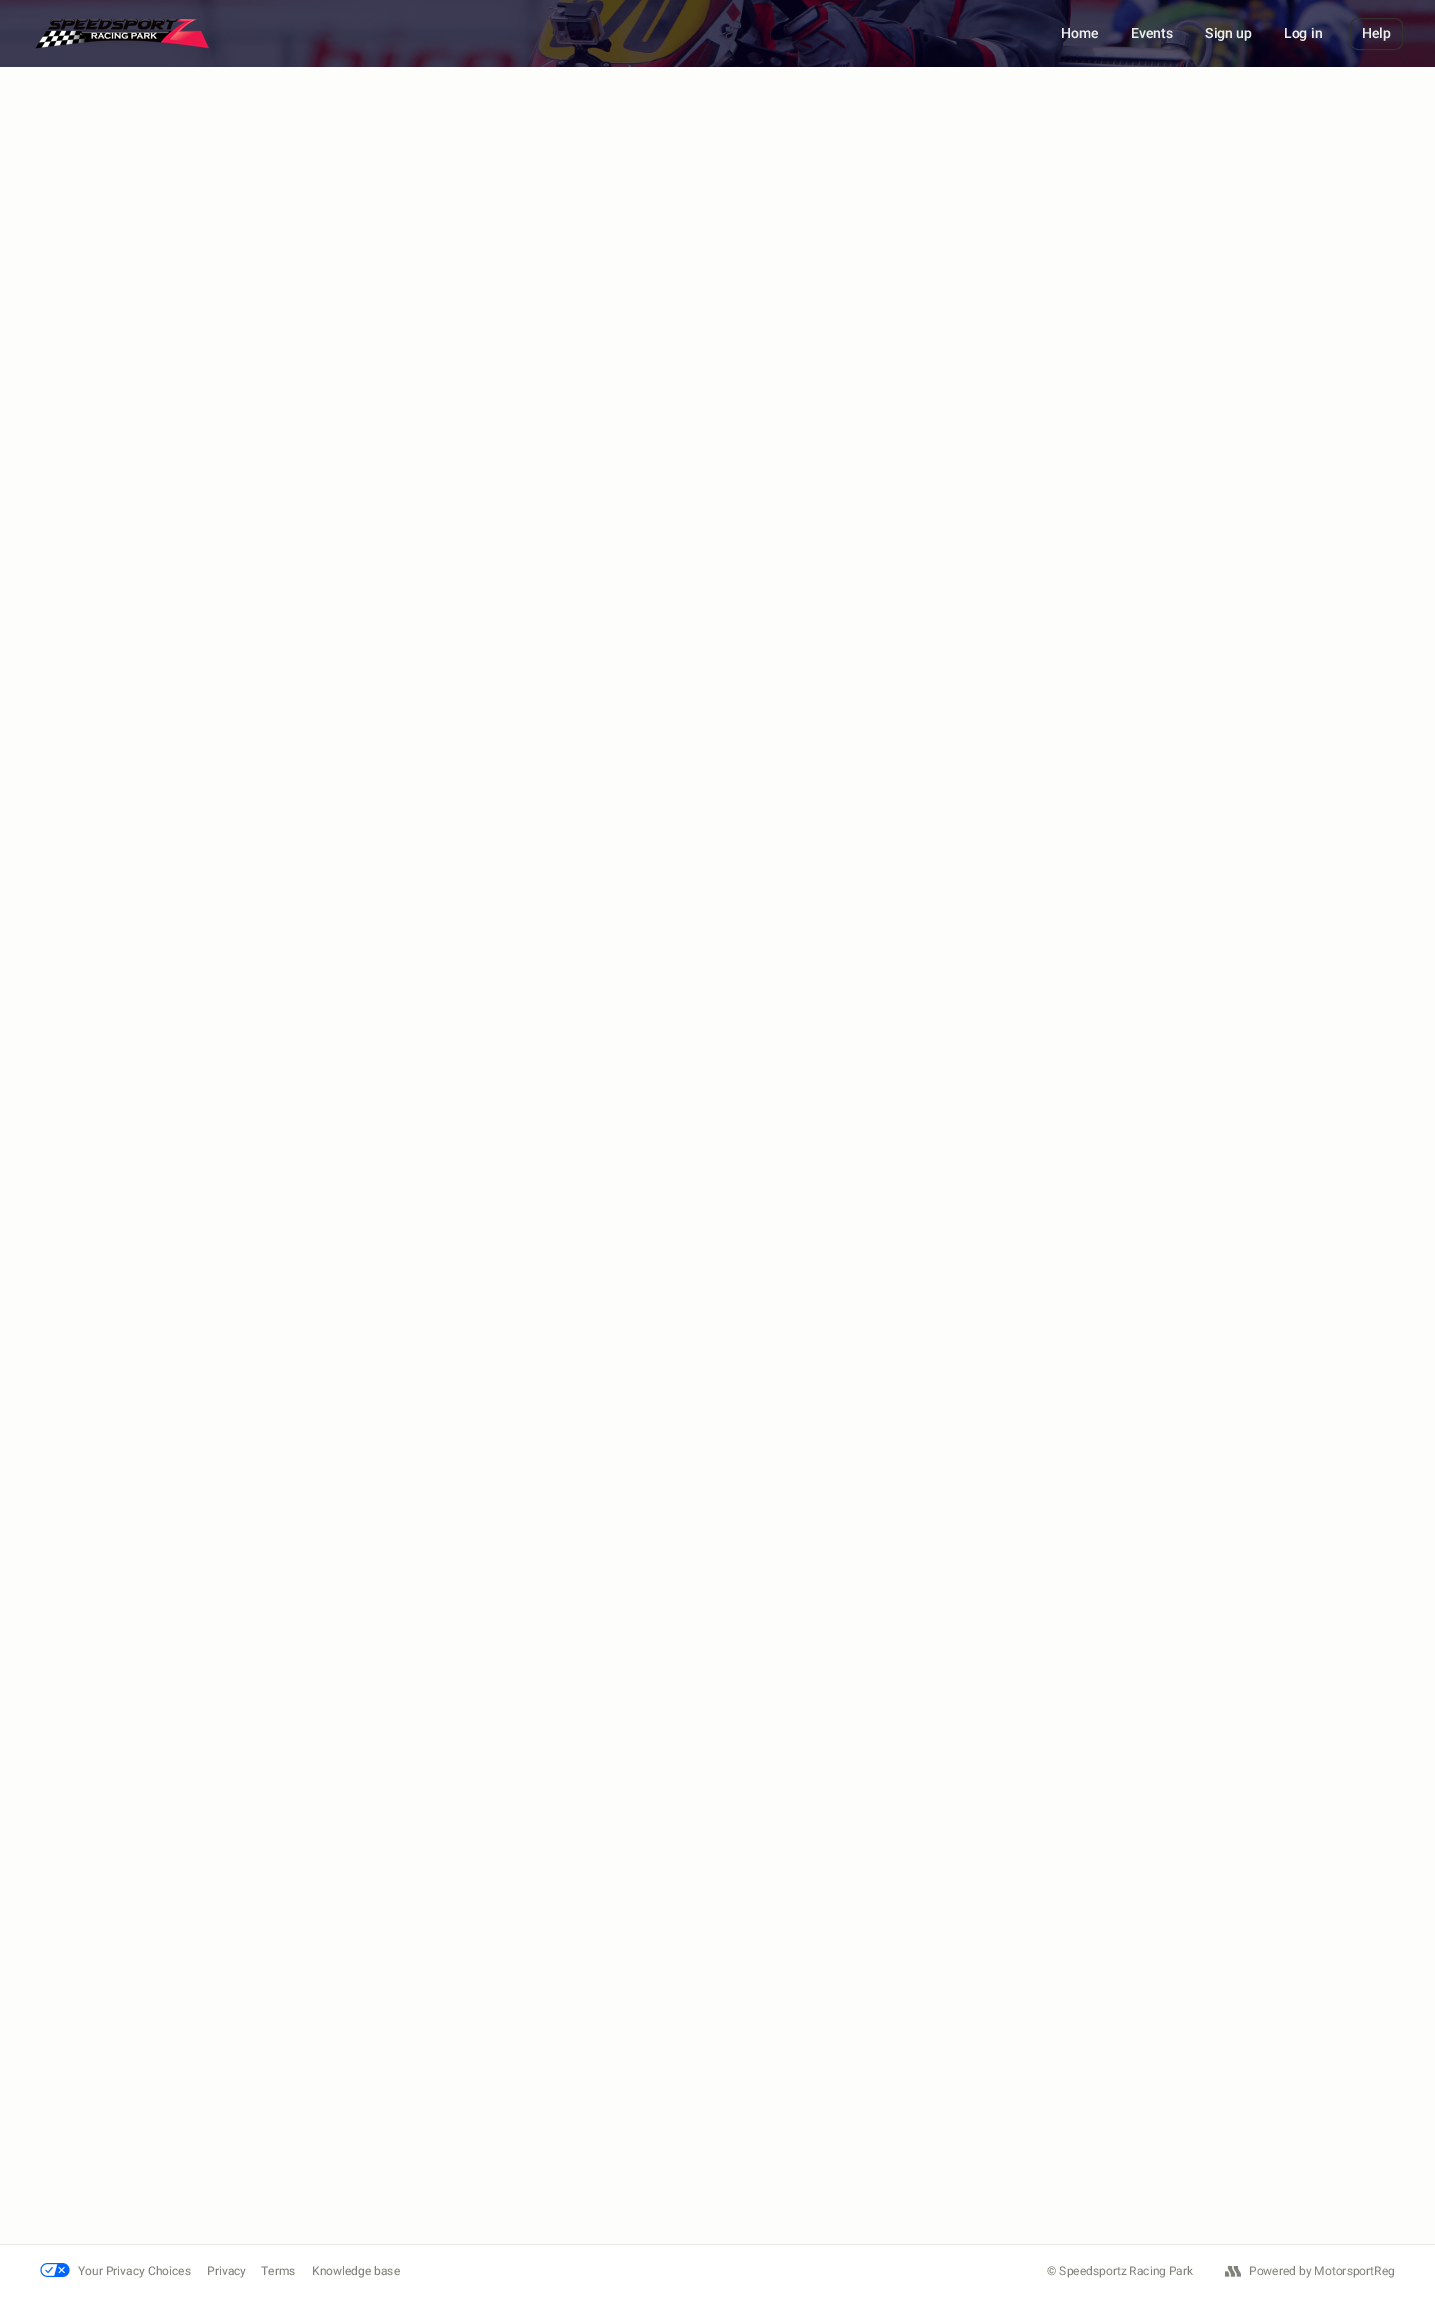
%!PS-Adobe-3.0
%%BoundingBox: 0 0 1435 2297
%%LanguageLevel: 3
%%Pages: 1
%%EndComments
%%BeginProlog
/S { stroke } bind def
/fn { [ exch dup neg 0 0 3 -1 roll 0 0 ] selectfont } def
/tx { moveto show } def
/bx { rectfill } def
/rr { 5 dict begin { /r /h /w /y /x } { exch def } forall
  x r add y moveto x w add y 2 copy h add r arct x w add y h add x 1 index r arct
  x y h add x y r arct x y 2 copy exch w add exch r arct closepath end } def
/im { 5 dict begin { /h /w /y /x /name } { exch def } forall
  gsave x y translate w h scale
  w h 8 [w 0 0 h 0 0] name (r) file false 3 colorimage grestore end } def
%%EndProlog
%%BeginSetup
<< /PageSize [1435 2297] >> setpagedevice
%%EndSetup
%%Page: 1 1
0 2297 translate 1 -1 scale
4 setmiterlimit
1 setgray
0 0 1435 2297 bx
(image0.raw) 0 0 1435 67 im
(image1.raw) 35 18 174 31 im
/Roboto-Medium 14 fn
0.933 0.933 0.925 setrgbcolor
(Home) 1061 38 tx
(Events) 1131 38 tx
(Sign up) 1205 38 tx
(Log in) 1284 38 tx
0.192 0.192 0.18 setrgbcolor
1350.5 18.5 52 31 7.5 rr S
0.933 0.933 0.925 setrgbcolor
(Help) 1362 38 tx
0.992 0.992 0.988 setrgbcolor
0 67 1435 2177 bx
0.91 setgray
0 2244 1435 1 bx
(image2.raw) 40 2263 30 14 im
/Roboto-Regular 12 fn
0.51 0.51 0.486 setrgbcolor
(Your Privacy Choices) 78 2275 tx
(Privacy) 207 2275 tx
(Terms) 261 2275 tx
(Knowledge base) 312 2275 tx
/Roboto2-Regular 12 fn
(© Speedsportz Racing Park) 1047 2275 tx
(image3.raw) 1225 2266 16 11 im
(Powered by MotorsportReg) 1249 2275 tx
showpage
%%EOF
